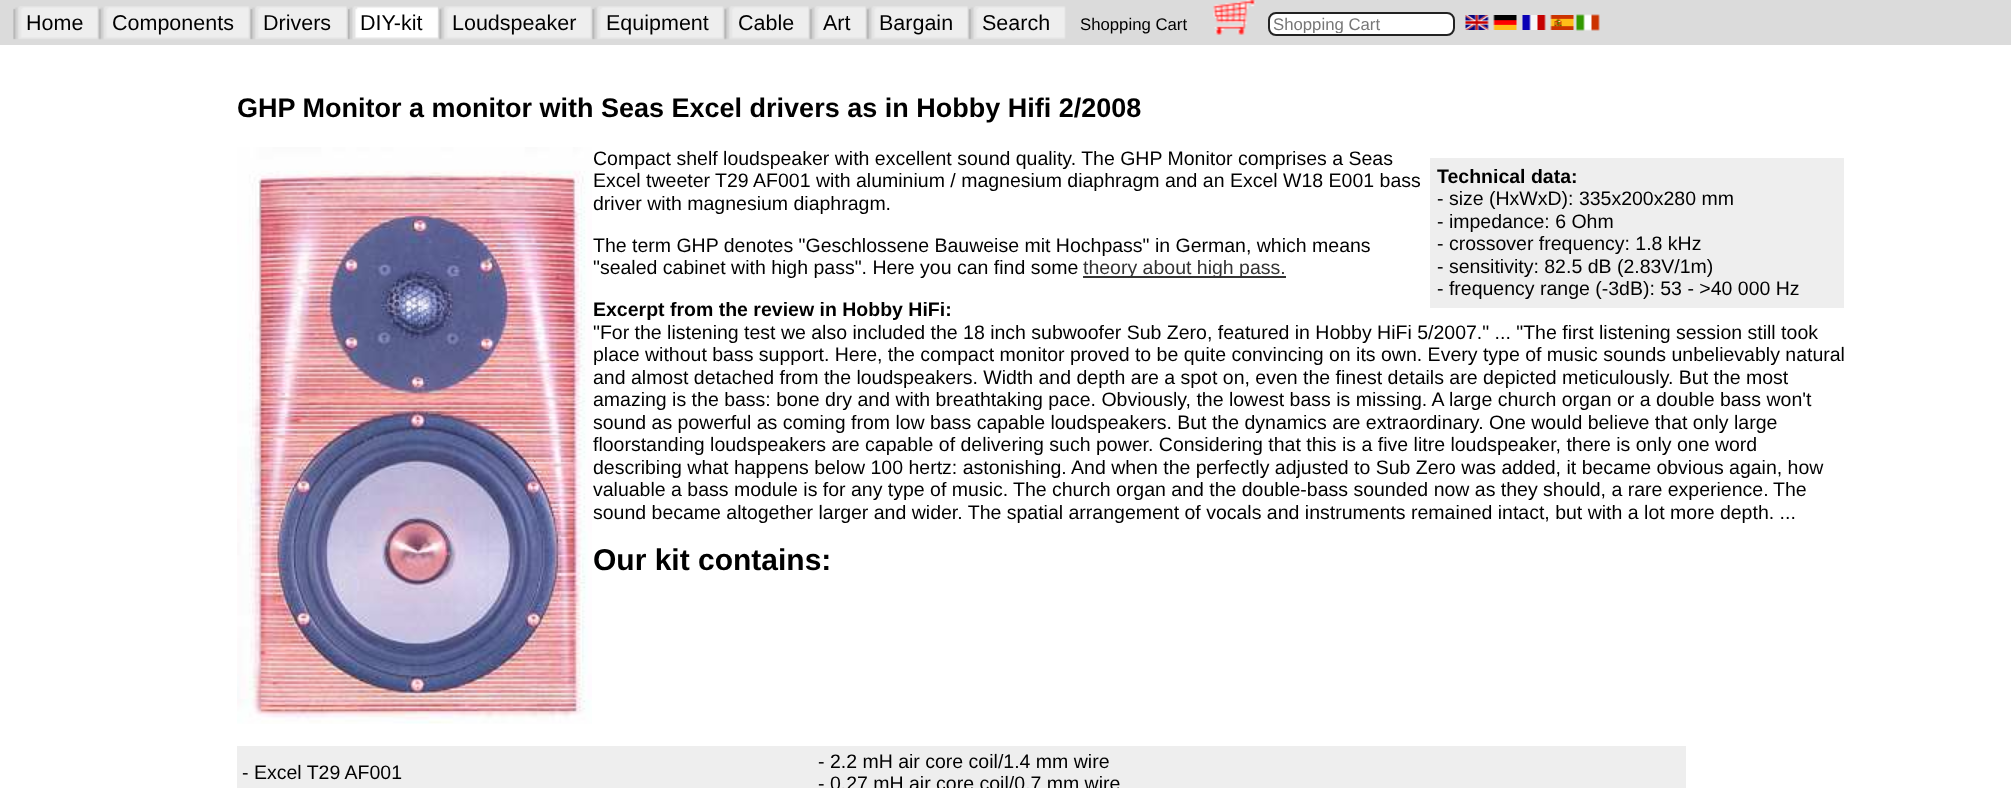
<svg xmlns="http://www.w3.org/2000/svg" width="2011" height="788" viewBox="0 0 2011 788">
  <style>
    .t1 { font: 21.5px Liberation Sans; fill: #000; }
    .t2 { font: 16.75px Liberation Sans; fill: #000; }
    .t3 { font: 16.75px Liberation Sans; fill: #777; }
    .t4 { font: bold 27px Liberation Sans; fill: #000; }
    .t5 { font: 19.5px Liberation Sans; fill: #000; }
    .t6 { font: bold 19.5px Liberation Sans; fill: #000; }
    .t7 { font: 19.5px Liberation Sans; fill: #333; }
    .t8 { font: bold 30px Liberation Sans; fill: #000; }
  </style>
  <defs>
    <clipPath id="clip1"><rect x="1272" y="15" width="179" height="18"/></clipPath>
  </defs>
  <rect width="100%" height="100%" fill="#fff"/>
  <rect x="0" y="0" width="2011" height="45" fill="#dbdbdb"/>
  <image x="13" y="6" width="85" height="34" href="images/1.png"/>
  <image x="98" y="6" width="152" height="34" href="images/2.png"/>
  <image x="250" y="6" width="97" height="34" href="images/3.png"/>
  <image x="347" y="6" width="91" height="34" href="images/4.png"/>
  <image x="439" y="6" width="153" height="34" href="images/5.png"/>
  <image x="592" y="6" width="132" height="34" href="images/6.png"/>
  <image x="724" y="6" width="85" height="34" href="images/7.png"/>
  <image x="809" y="6" width="57" height="34" href="images/8.png"/>
  <image x="866" y="6" width="102" height="34" href="images/9.png"/>
  <image x="968" y="6" width="98" height="34" href="images/10.png"/>
  <text x="26" y="30" class="t1">Home</text>
  <text x="112" y="30" class="t1">Components</text>
  <text x="263" y="30" class="t1">Drivers</text>
  <text x="360" y="30" class="t1">DIY-kit</text>
  <text x="452" y="30" class="t1">Loudspeaker</text>
  <text x="606" y="30" class="t1">Equipment</text>
  <text x="738" y="30" class="t1">Cable</text>
  <text x="823" y="30" class="t1">Art</text>
  <text x="879" y="30" class="t1">Bargain</text>
  <text x="982" y="30" class="t1">Search</text>
  <text x="1080" y="30" class="t2">Shopping Cart</text>
  <image x="1213" y="0" width="43" height="35" href="images/11.png"/>
  <rect x="1269" y="13" width="185" height="22" rx="7" fill="#fff" stroke="#222" stroke-width="2"/>
  <g clip-path="url(#clip1)">
    <text x="1273" y="30" class="t3">Shopping Cart</text>
  </g>
  <image x="1465" y="15" width="24" height="15" href="images/12.png"/>
  <image x="1493" y="15" width="24" height="15" href="images/13.png"/>
  <image x="1522" y="15" width="24" height="15" href="images/14.png"/>
  <image x="1550" y="15" width="24" height="15" href="images/15.png"/>
  <image x="1576" y="14" width="24" height="17" href="images/16.png"/>
  <text x="237" y="117" class="t4">GHP Monitor a monitor with Seas Excel drivers as in Hobby Hifi 2/2008</text>
  <image x="237" y="147" width="355" height="577" href="images/17.png"/>
  <text x="593" y="165" class="t5">Compact shelf loudspeaker with excellent sound quality. The GHP Monitor comprises a Seas</text>
  <text x="593" y="187" class="t5">Excel tweeter T29 AF001 with aluminium / magnesium diaphragm and an Excel W18 E001 bass</text>
  <rect x="1430" y="158" width="414" height="150" fill="#eee"/>
  <text x="1437" y="183" class="t6">Technical data:</text>
  <text x="1437" y="205" class="t5">- size (HxWxD): 335x200x280 mm</text>
  <text x="1437" y="228" class="t5">- impedance: 6 Ohm</text>
  <text x="1437" y="250" class="t5">- crossover frequency: 1.8 kHz</text>
  <text x="1437" y="273" class="t5">- sensitivity: 82.5 dB (2.83V/1m)</text>
  <text x="1437" y="295" class="t5">- frequency range (-3dB): 53 - &gt;40 000 Hz</text>
  <text x="593" y="210" class="t5">driver with magnesium diaphragm.</text>
  <text x="593" y="252" class="t5">The term GHP denotes "Geschlossene Bauweise mit Hochpass" in German, which means</text>
  <text x="593" y="274" class="t5">"sealed cabinet with high pass". Here you can find some</text>
  <rect x="1083" y="276" width="203" height="2" fill="#333"/>
  <text x="1083" y="274" class="t7">theory about high pass.</text>
  <text x="593" y="316" class="t6">Excerpt from the review in Hobby HiFi:</text>
  <text x="593" y="339" class="t5">"For the listening test we also included the 18 inch subwoofer Sub Zero, featured in Hobby HiFi 5/2007." ... "The first listening session still took</text>
  <text x="593" y="361" class="t5">place without bass support. Here, the compact monitor proved to be quite convincing on its own. Every type of music sounds unbelievably natural</text>
  <text x="593" y="384" class="t5">and almost detached from the loudspeakers. Width and depth are a spot on, even the finest details are depicted meticulously. But the most</text>
  <text x="593" y="406" class="t5">amazing is the bass: bone dry and with breathtaking pace. Obviously, the lowest bass is missing. A large church organ or a double bass won't</text>
  <text x="593" y="429" class="t5">sound as powerful as coming from low bass capable loudspeakers. But the dynamics are extraordinary. One would believe that only large</text>
  <text x="593" y="451" class="t5">floorstanding loudspeakers are capable of delivering such power. Considering that this is a five litre loudspeaker, there is only one word</text>
  <text x="593" y="474" class="t5">describing what happens below 100 hertz: astonishing. And when the perfectly adjusted to Sub Zero was added, it became obvious again, how</text>
  <text x="593" y="496" class="t5">valuable a bass module is for any type of music.</text>
  <text x="1013" y="496" class="t5">The church organ and the double-bass sounded now as they should, a rare experience.</text>
  <text x="1773" y="496" class="t5">The</text>
  <text x="593" y="519" class="t5">sound became altogether larger and wider. The spatial arrangement of vocals and instruments remained intact, but with a lot more depth. ...</text>
  <text x="593" y="570" class="t8">Our kit contains:</text>
  <rect x="237" y="746" width="1449" height="42" fill="#eee"/>
  <text x="242" y="779" class="t5">- Excel T29 AF001</text>
  <text x="818" y="768" class="t5">- 2.2 mH air core coil/1.4 mm wire</text>
  <text x="818" y="790" class="t5">- 0.27 mH air core coil/0.7 mm wire</text>
</svg>
